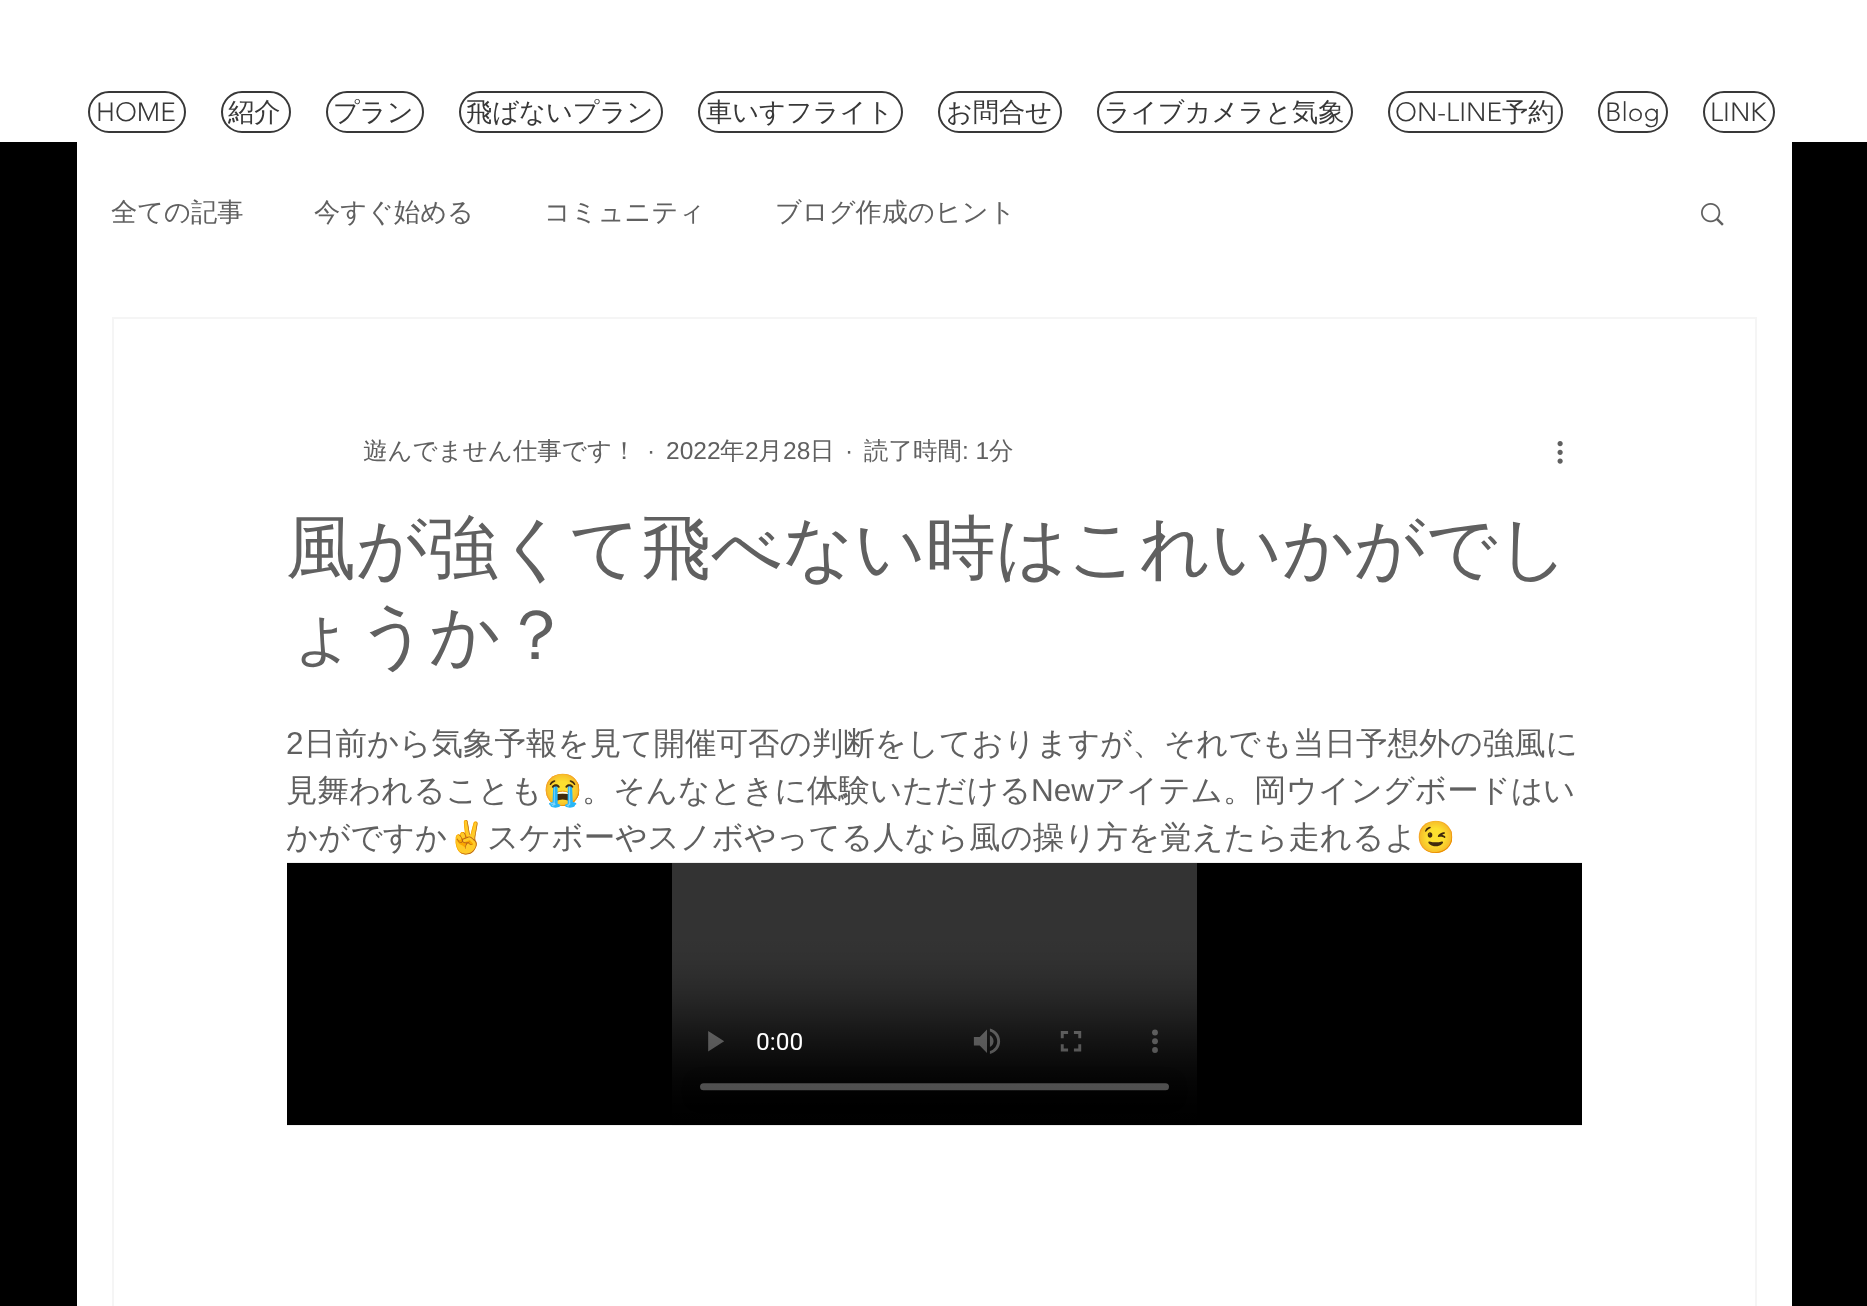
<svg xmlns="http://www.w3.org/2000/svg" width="1867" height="1306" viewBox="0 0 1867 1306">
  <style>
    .t1 { font: 300 26.25px 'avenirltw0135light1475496'; fill: #383838; }
    .t2 { font: 500 26.25px WenQuanYi Zen Hei; fill: #383838; }
    .t3 { font: 500 26.25px WenQuanYi Zen Hei; fill: #606060; }
    .t4 { font: 500 24.5px WenQuanYi Zen Hei; fill: #606060; }
    .t5 { font: 24.5px Liberation Sans; fill: #606060; }
    .t6 { font: 500 70px WenQuanYi Zen Hei; fill: #606060; }
    .t7 { font: 31.5px Liberation Sans; fill: #606060; }
    .t8 { font: 500 31.5px WenQuanYi Zen Hei; fill: #606060; }
    .t9 { font: 31.5px Noto Color Emoji; fill: #606060; }
  </style>
  <rect width="100%" height="100%" fill="#000"/>
  <rect x="0" y="0" width="1867" height="142" fill="#fff"/>
  <rect x="89" y="92" width="96" height="40" rx="20" fill="none" stroke="#383838" stroke-width="2"/>
  <text x="96" y="121" class="t1">HOME</text>
  <rect x="222" y="92" width="68" height="40" rx="20" fill="none" stroke="#383838" stroke-width="2"/>
  <text x="228" y="121" class="t2">紹介</text>
  <rect x="327" y="92" width="96" height="40" rx="20" fill="none" stroke="#383838" stroke-width="2"/>
  <text x="333" y="121" class="t2">プラン</text>
  <rect x="460" y="92" width="202" height="40" rx="20" fill="none" stroke="#383838" stroke-width="2"/>
  <text x="466" y="121" class="t2">飛ばないプラン</text>
  <rect x="699" y="92" width="203" height="40" rx="20" fill="none" stroke="#383838" stroke-width="2"/>
  <text x="706" y="121" class="t2">車いすフライト</text>
  <rect x="939" y="92" width="122" height="40" rx="20" fill="none" stroke="#383838" stroke-width="2"/>
  <text x="946" y="121" class="t2">お問合せ</text>
  <rect x="1098" y="92" width="254" height="40" rx="20" fill="none" stroke="#383838" stroke-width="2"/>
  <text x="1104" y="121" class="t2">ライブカメラと気象</text>
  <rect x="1389" y="92" width="173" height="40" rx="20" fill="none" stroke="#383838" stroke-width="2"/>
  <text x="1395" y="121" class="t1">ON-LINE</text>
  <text x="1502" y="121" class="t2">予約</text>
  <rect x="1599" y="92" width="68" height="40" rx="20" fill="none" stroke="#383838" stroke-width="2"/>
  <text x="1605" y="121" class="t1">Blog</text>
  <rect x="1704" y="92" width="70" height="40" rx="20" fill="none" stroke="#383838" stroke-width="2"/>
  <text x="1710" y="121" class="t1">LINK</text>
  <rect x="77" y="142" width="1715" height="1164" fill="#fff"/>
  <text x="111" y="221" class="t3">全ての記事</text>
  <text x="314" y="221" class="t3">今すぐ始める</text>
  <text x="544" y="221" class="t3">コミュニティ</text>
  <text x="775" y="221" class="t3">ブログ作成のヒント</text>
  <image x="1701" y="203" width="23" height="23" href="images/1.png"/>
  <rect x="113" y="318" width="1643" height="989" fill="none" stroke="#f5f5f5" stroke-width="2"/>
  <text x="363" y="459" class="t4">遊んでません仕事です！</text>
  <text x="647" y="459" class="t5">·</text>
  <text x="666" y="459" class="t5">2022</text>
  <text x="720" y="459" class="t4">年</text>
  <text x="745" y="459" class="t5">2</text>
  <text x="758" y="459" class="t4">月</text>
  <text x="783" y="459" class="t5">28</text>
  <text x="810" y="459" class="t4">日</text>
  <text x="845" y="459" class="t5">·</text>
  <text x="864" y="459" class="t4">読了時間</text>
  <text x="962" y="459" class="t5">: 1</text>
  <text x="989" y="459" class="t4">分</text>
  <image x="1557" y="441" width="6" height="23" href="images/2.png"/>
  <text x="286" y="572" class="t6">風が強くて飛べない時はこれいかがでし</text>
  <text x="286" y="659" class="t6">ょうか？</text>
  <text x="286" y="754" class="t7">2</text>
  <text x="304" y="754" class="t8">日前から気象予報を見て開催可否の判断をしておりますが、それでも当日予想外の強風に</text>
  <text x="286" y="801" class="t8">見舞われることも</text>
  <text x="543" y="801" class="t9">😭</text>
  <text x="582" y="801" class="t8">。そんなときに体験いただける</text>
  <text x="1031" y="801" class="t7">New</text>
  <text x="1094" y="801" class="t8">アイテム。岡ウイングボードはい</text>
  <text x="286" y="848" class="t8">かがですか</text>
  <text x="447" y="848" class="t9">✌️</text>
  <text x="487" y="848" class="t8">スケボーやスノボやってる人なら風の操り方を覚えたら走れるよ</text>
  <text x="1416" y="848" class="t9">😉</text>
  <image x="287" y="862" width="1295" height="264" href="images/3.png"/>
</svg>
